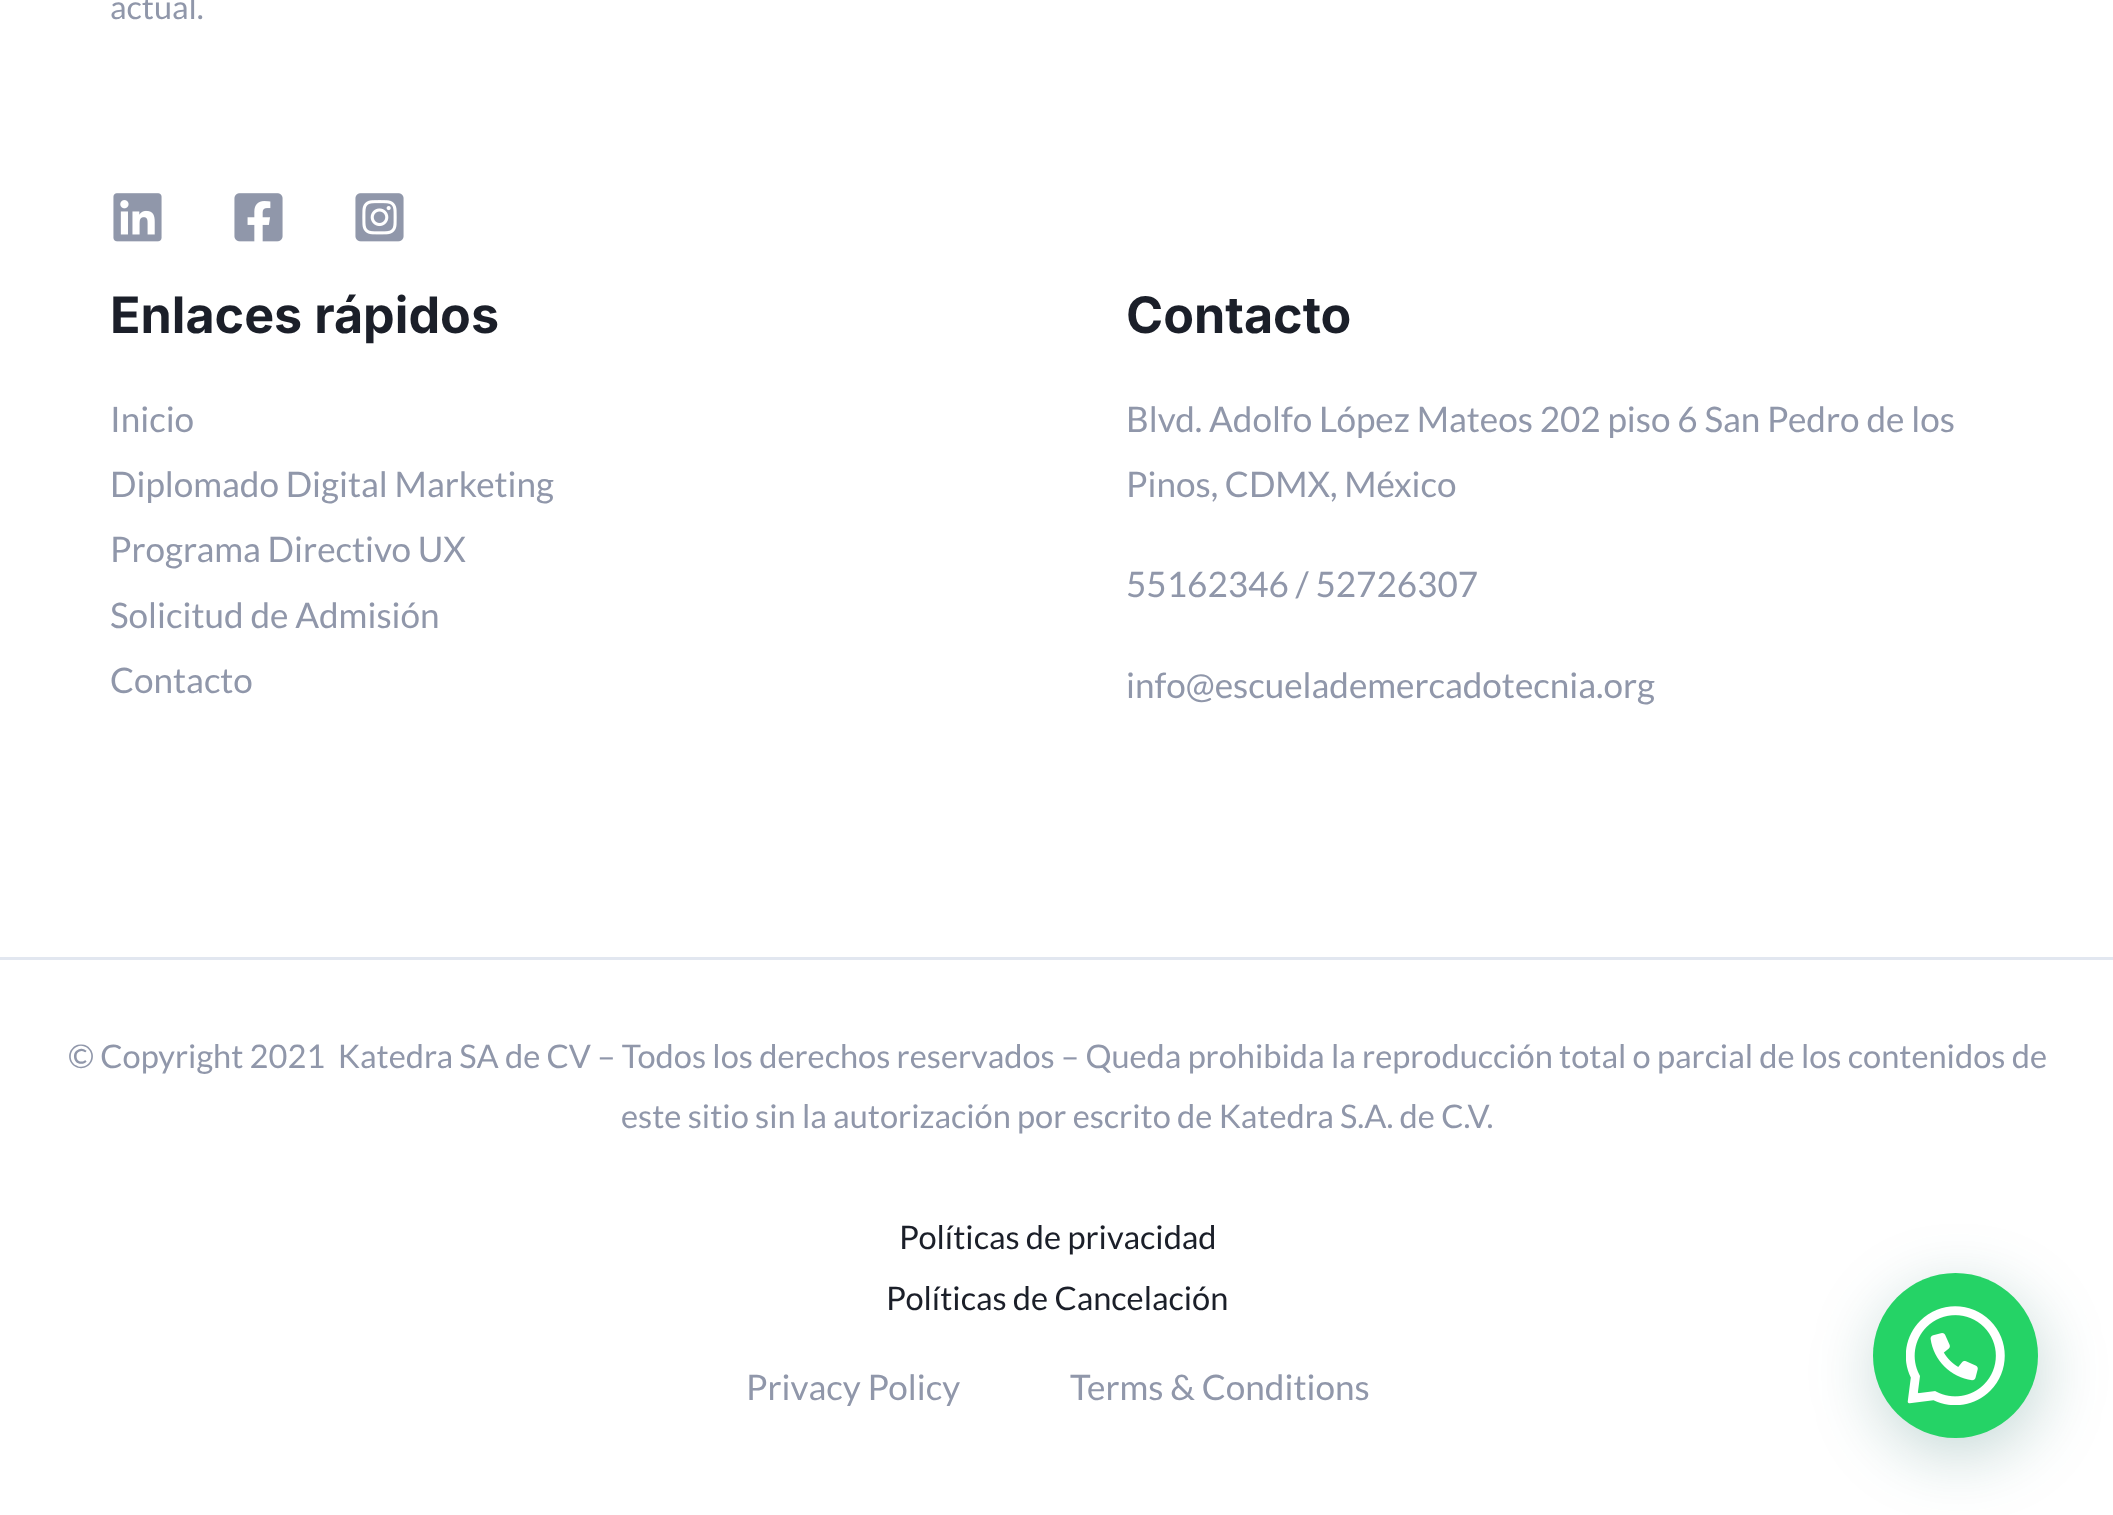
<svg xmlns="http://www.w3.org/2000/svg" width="2113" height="1515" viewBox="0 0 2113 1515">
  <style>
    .t1 { font: 32.6px Lato; fill: #9097aa; }
    .t2 { font: bold 50.25px Inter; fill: #1b1f29; }
    .t3 { font: 35.1px Lato; fill: #9097aa; }
    .t4 { font: 32.6px Lato; fill: #1b1f29; }
  </style>
  <rect width="100%" height="100%" fill="#fff"/>
  <text x="110" y="19" class="t1">actual.</text>
  <image x="113" y="193" width="49" height="49" href="images/1.png"/>
  <image x="234" y="193" width="49" height="49" href="images/2.png"/>
  <image x="355" y="193" width="49" height="49" href="images/3.png"/>
  <text x="110" y="333" class="t2">Enlaces rápidos</text>
  <text x="110" y="432" class="t3">Inicio</text>
  <text x="110" y="497" class="t3">Diplomado Digital Marketing</text>
  <text x="110" y="562" class="t3">Programa Directivo UX</text>
  <text x="110" y="628" class="t3">Solicitud de Admisión</text>
  <text x="110" y="693" class="t3">Contacto</text>
  <text x="1126" y="333" class="t2">Contacto</text>
  <text x="1126" y="432" class="t3">Blvd. Adolfo López Mateos 202 piso 6 San Pedro de los</text>
  <text x="1126" y="497" class="t3">Pinos, CDMX, México</text>
  <text x="1126" y="597" class="t3">55162346 / 52726307</text>
  <text x="1126" y="698" class="t3">info@escuelademercadotecnia.org</text>
  <rect x="0" y="957" width="2113" height="3" fill="#e2e7f0"/>
  <text x="68" y="1068" class="t1" xml:space="preserve">© Copyright 2021  Katedra SA de CV – Todos los derechos reservados – Queda prohibida la reproducción total o parcial de los contenidos de</text>
  <text x="621" y="1128" class="t1">este sitio sin la autorización por escrito de Katedra S.A. de C.V.</text>
  <text x="899" y="1249" class="t4">Políticas de privacidad</text>
  <text x="886" y="1310" class="t4">Políticas de Cancelación</text>
  <text x="746" y="1400" class="t3">Privacy Policy</text>
  <text x="1070" y="1400" class="t3">Terms &amp; Conditions</text>
  <rect x="1876" y="1290" width="165" height="165" rx="82.5" fill="#075e543d" filter="blur(33px)"/>
  <circle cx="1955.5" cy="1355.5" r="82.5" fill="#25d366"/>
  <image x="1906" y="1306" width="99" height="99" href="images/4.png"/>
</svg>
